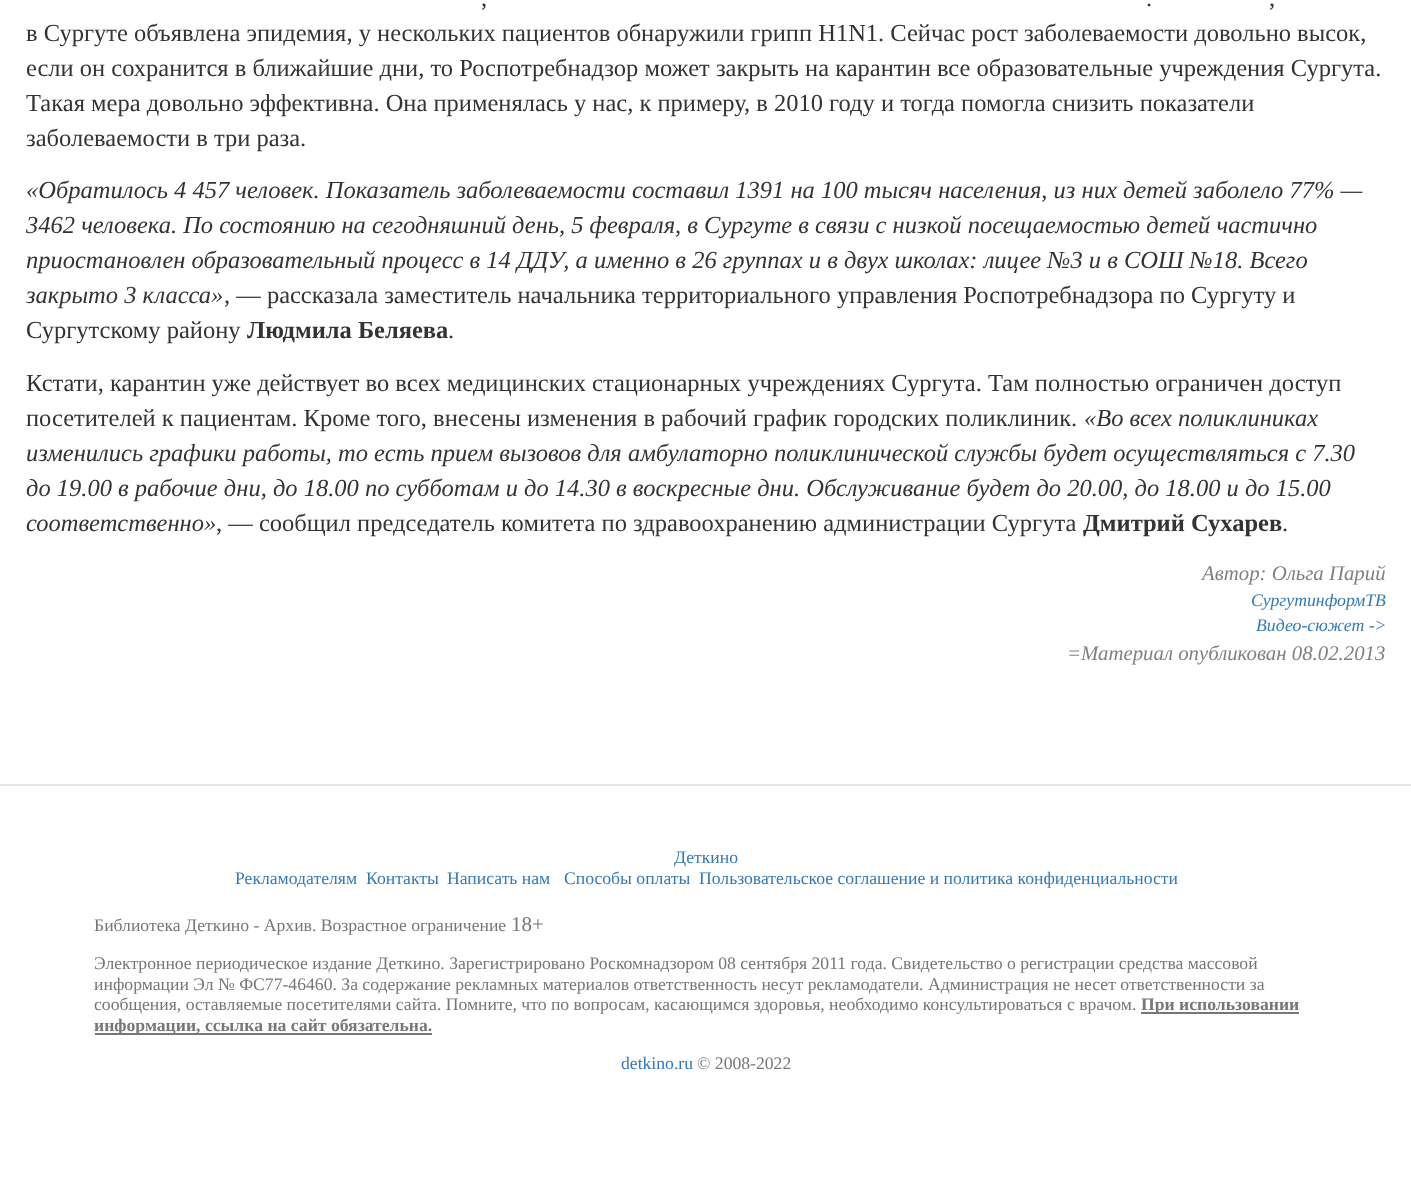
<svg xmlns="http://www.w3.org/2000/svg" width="1411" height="1189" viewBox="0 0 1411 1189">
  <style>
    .t1 { font: 24.5px Liberation Serif; fill: #333; }
    .t2 { font: italic 24.5px Liberation Serif; fill: #333; }
    .t3 { font: bold 24.5px Liberation Serif; fill: #333; }
    .t4 { font: italic 20.8px Liberation Serif; fill: #808080; }
    .t5 { font: italic 17.75px Liberation Serif; fill: #337ab7; }
    .t6 { font: 17.65px Liberation Serif; fill: #337ab7; }
    .t7 { font: 17.65px Liberation Serif; fill: #777; }
    .t8 { font: 21px Liberation Serif; fill: #777; }
    .t9 { font: bold 17.65px Liberation Serif; fill: #777; }
  </style>
  <rect width="100%" height="100%" fill="#fff"/>
  <text x="481" y="6" class="t1">,</text>
  <text x="1146" y="6" class="t1">.</text>
  <text x="1269" y="6" class="t1">,</text>
  <text x="26" y="41" class="t1">в Сургуте объявлена эпидемия, у нескольких пациентов обнаружили грипп H1N1. Сейчас рост заболеваемости довольно высок,</text>
  <text x="26" y="76" class="t1">если он сохранится в ближайшие дни, то Роспотребнадзор может закрыть на карантин все образовательные учреждения Сургута.</text>
  <text x="26" y="111" class="t1">Такая мера довольно эффективна. Она применялась у нас, к примеру, в 2010 году и тогда помогла снизить показатели</text>
  <text x="26" y="146" class="t1">заболеваемости в три раза.</text>
  <text x="26" y="198" class="t2">«Обратилось 4 457 человек. Показатель заболеваемости составил 1391 на 100 тысяч населения, из них детей заболело 77% —</text>
  <text x="26" y="233" class="t2">3462 человека. По состоянию на сегодняшний день, 5 февраля, в Сургуте в связи с низкой посещаемостью детей частично</text>
  <text x="26" y="268" class="t2">приостановлен образовательный процесс в 14 ДДУ, а именно в 26 группах и в двух школах: лицее №3 и в СОШ №18. Всего</text>
  <text x="26" y="303" class="t2">закрыто 3 класса»</text>
  <text x="224" y="303" class="t1">, — рассказала заместитель начальника территориального управления Роспотребнадзора по Сургуту и</text>
  <text x="26" y="338" class="t1">Сургутскому району</text>
  <text x="247" y="338" class="t3">Людмила Беляева</text>
  <text x="448" y="338" class="t1">.</text>
  <text x="26" y="391" class="t1">Кстати, карантин уже действует во всех медицинских стационарных учреждениях Сургута. Там полностью ограничен доступ</text>
  <text x="26" y="426" class="t1">посетителей к пациентам. Кроме того, внесены изменения в рабочий график городских поликлиник.</text>
  <text x="1084" y="426" class="t2">«Во всех поликлиниках</text>
  <text x="26" y="461" class="t2">изменились графики работы, то есть прием вызовов для амбулаторно поликлинической службы будет осуществляться с 7.30</text>
  <text x="26" y="496" class="t2">до 19.00 в рабочие дни, до 18.00 по субботам и до 14.30 в воскресные дни. Обслуживание будет до 20.00, до 18.00 и до 15.00</text>
  <text x="26" y="531" class="t2">соответственно»</text>
  <text x="216" y="531" class="t1">, — сообщил председатель комитета по здравоохранению администрации Сургута</text>
  <text x="1083" y="531" class="t3">Дмитрий Сухарев</text>
  <text x="1282" y="531" class="t1">.</text>
  <text x="1202" y="580" class="t4">Автор: Ольга Парий</text>
  <text x="1251" y="606" class="t5">СургутинформТВ</text>
  <text x="1256" y="631" class="t5">Видео-сюжет -&gt;</text>
  <text x="1067" y="660" class="t4">=Материал опубликован 08.02.2013</text>
  <rect x="0" y="784" width="1411" height="2" fill="#e5e5e5"/>
  <text x="674" y="863" class="t6">Деткино</text>
  <text x="235" y="884" class="t6">Рекламодателям</text>
  <text x="366" y="884" class="t6">Контакты</text>
  <text x="447" y="884" class="t6">Написать нам</text>
  <text x="564" y="884" class="t6">Способы оплаты</text>
  <text x="699" y="884" class="t6">Пользовательское соглашение и политика конфиденциальности</text>
  <text x="94" y="931" class="t7">Библиотека Деткино - Архив. Возрастное ограничение</text>
  <text x="511" y="931" class="t8">18+</text>
  <text x="94" y="969" class="t7">Электронное периодическое издание Деткино. Зарегистрировано Роскомнадзором 08 сентября 2011 года. Свидетельство о регистрации средства массовой</text>
  <text x="94" y="990" class="t7">информации Эл № ФС77-46460. За содержание рекламных материалов ответственность несут рекламодатели. Администрация не несет ответственности за</text>
  <text x="94" y="1010" class="t7">сообщения, оставляемые посетителями сайта. Помните, что по вопросам, касающимся здоровья, необходимо консультироваться с врачом.</text>
  <rect x="1141" y="1012" width="158" height="2" fill="#777"/>
  <text x="1141" y="1010" class="t9">При использовании</text>
  <rect x="95" y="1033" width="337" height="2" fill="#777"/>
  <text x="94" y="1031" class="t9">информации, ссылка на сайт обязательна.</text>
  <text x="621" y="1069" class="t6">detkino.ru</text>
  <text x="697" y="1069" class="t7">© 2008-2022</text>
</svg>
